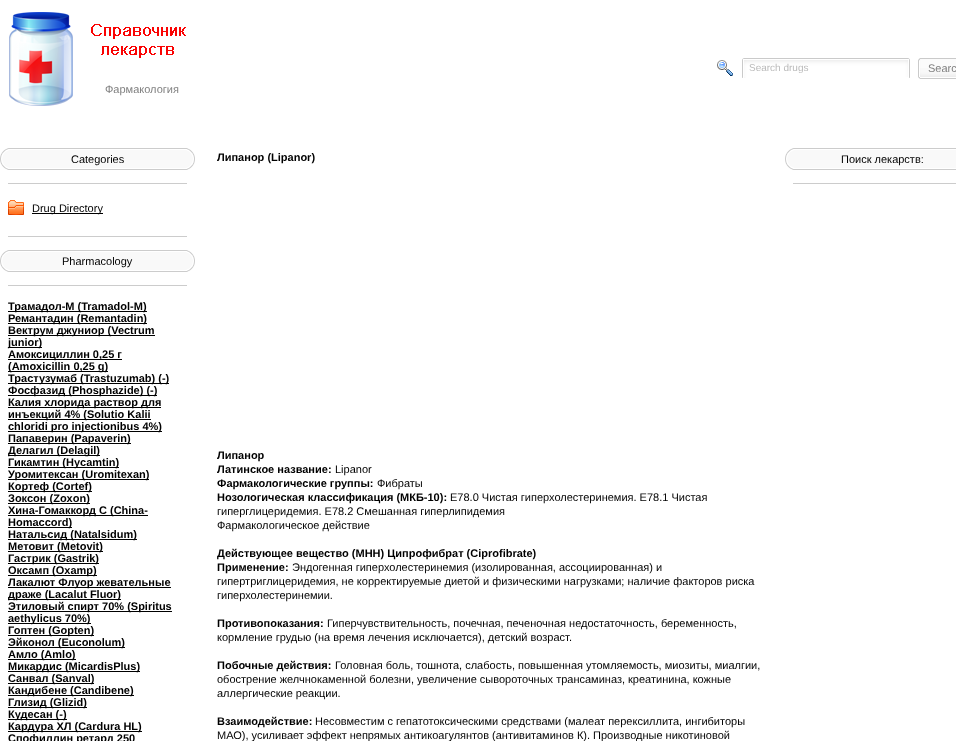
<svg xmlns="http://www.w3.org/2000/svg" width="956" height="741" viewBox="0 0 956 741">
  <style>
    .t1 { font: 10px Liberation Sans; fill: #bababa; }
    .t2 { font: 11px Liberation Sans; fill: #808080; }
    .t3 { font: 11px Liberation Sans; fill: #000; }
    .t4 { font: bold 11px Liberation Sans; fill: #000; }
  </style>
  <rect width="100%" height="100%" fill="#fff"/>
  <image x="717" y="60" width="16" height="16" href="images/1.png"/>
  <image x="742" y="58" width="168" height="20" href="images/2.png"/>
  <text x="749" y="71" class="t1">Search drugs</text>
  <image x="918" y="58" width="38" height="21" href="images/3.png"/>
  <text x="928" y="72" class="t2">Searc</text>
  <image x="9" y="12" width="177" height="94" href="images/4.png"/>
  <text x="105" y="93" class="t2">Фармакология</text>
  <image x="0" y="148" width="195" height="22" href="images/5.png"/>
  <text x="71" y="163" class="t3">Categories</text>
  <rect x="8" y="183" width="179" height="1" fill="#ccc"/>
  <rect x="8" y="236" width="179" height="1" fill="#ccc"/>
  <image x="8" y="200" width="16" height="15" href="images/6.png"/>
  <rect x="32" y="213" width="71" height="1" fill="#000"/>
  <text x="32" y="212" class="t3">Drug Directory</text>
  <image x="0" y="250" width="195" height="22" href="images/5.png"/>
  <text x="62" y="265" class="t3">Pharmacology</text>
  <rect x="8" y="285" width="179" height="1" fill="#ccc"/>
  <rect x="8" y="311" width="139" height="1" fill="#000"/>
  <text x="8" y="310" class="t4">Трамадол-М (Tramadol-M)</text>
  <rect x="8" y="323" width="139" height="1" fill="#000"/>
  <text x="8" y="322" class="t4">Ремантадин (Remantadin)</text>
  <rect x="8" y="335" width="147" height="1" fill="#000"/>
  <text x="8" y="334" class="t4">Вектрум джуниор (Vectrum</text>
  <rect x="8" y="347" width="34" height="1" fill="#000"/>
  <text x="8" y="346" class="t4">junior)</text>
  <rect x="8" y="359" width="114" height="1" fill="#000"/>
  <text x="8" y="358" class="t4">Амоксициллин 0,25 г</text>
  <rect x="8" y="371" width="100" height="1" fill="#000"/>
  <text x="8" y="370" class="t4">(Amoxicillin 0,25 g)</text>
  <rect x="8" y="383" width="161" height="1" fill="#000"/>
  <text x="8" y="382" class="t4">Трастузумаб (Trastuzumab) (-)</text>
  <rect x="8" y="395" width="149" height="1" fill="#000"/>
  <text x="8" y="394" class="t4">Фосфазид (Phosphazide) (-)</text>
  <rect x="8" y="407" width="153" height="1" fill="#000"/>
  <text x="8" y="406" class="t4">Калия хлорида раствор для</text>
  <rect x="8" y="419" width="143" height="1" fill="#000"/>
  <text x="8" y="418" class="t4">инъекций 4% (Solutio Kalii</text>
  <rect x="8" y="431" width="154" height="1" fill="#000"/>
  <text x="8" y="430" class="t4">chloridi pro injectionibus 4%)</text>
  <rect x="8" y="443" width="123" height="1" fill="#000"/>
  <text x="8" y="442" class="t4">Папаверин (Papaverin)</text>
  <rect x="8" y="455" width="92" height="1" fill="#000"/>
  <text x="8" y="454" class="t4">Делагил (Delagil)</text>
  <rect x="8" y="467" width="111" height="1" fill="#000"/>
  <text x="8" y="466" class="t4">Гикамтин (Hycamtin)</text>
  <rect x="8" y="479" width="141" height="1" fill="#000"/>
  <text x="8" y="478" class="t4">Уромитексан (Uromitexan)</text>
  <rect x="8" y="491" width="84" height="1" fill="#000"/>
  <text x="8" y="490" class="t4">Кортеф (Cortef)</text>
  <rect x="8" y="503" width="82" height="1" fill="#000"/>
  <text x="8" y="502" class="t4">Зоксон (Zoxon)</text>
  <rect x="8" y="515" width="140" height="1" fill="#000"/>
  <text x="8" y="514" class="t4">Хина-Гомаккорд С (China-</text>
  <rect x="8" y="527" width="64" height="1" fill="#000"/>
  <text x="8" y="526" class="t4">Homaccord)</text>
  <rect x="8" y="539" width="129" height="1" fill="#000"/>
  <text x="8" y="538" class="t4">Натальсид (Natalsidum)</text>
  <rect x="8" y="551" width="95" height="1" fill="#000"/>
  <text x="8" y="550" class="t4">Метовит (Metovit)</text>
  <rect x="8" y="563" width="91" height="1" fill="#000"/>
  <text x="8" y="562" class="t4">Гастрик (Gastrik)</text>
  <rect x="8" y="575" width="89" height="1" fill="#000"/>
  <text x="8" y="574" class="t4">Оксамп (Oxamp)</text>
  <rect x="8" y="587" width="163" height="1" fill="#000"/>
  <text x="8" y="586" class="t4">Лакалют Флуор жевательные</text>
  <rect x="8" y="599" width="113" height="1" fill="#000"/>
  <text x="8" y="598" class="t4">драже (Lacalut Fluor)</text>
  <rect x="8" y="611" width="164" height="1" fill="#000"/>
  <text x="8" y="610" class="t4">Этиловый спирт 70% (Spiritus</text>
  <rect x="8" y="623" width="83" height="1" fill="#000"/>
  <text x="8" y="622" class="t4">aethylicus 70%)</text>
  <rect x="8" y="635" width="86" height="1" fill="#000"/>
  <text x="8" y="634" class="t4">Гоптен (Gopten)</text>
  <rect x="8" y="647" width="117" height="1" fill="#000"/>
  <text x="8" y="646" class="t4">Эйконол (Euconolum)</text>
  <rect x="8" y="659" width="68" height="1" fill="#000"/>
  <text x="8" y="658" class="t4">Амло (Amlo)</text>
  <rect x="8" y="671" width="132" height="1" fill="#000"/>
  <text x="8" y="670" class="t4">Микардис (MicardisPlus)</text>
  <rect x="8" y="683" width="86" height="1" fill="#000"/>
  <text x="8" y="682" class="t4">Санвал (Sanval)</text>
  <rect x="8" y="695" width="126" height="1" fill="#000"/>
  <text x="8" y="694" class="t4">Кандибене (Candibene)</text>
  <rect x="8" y="707" width="79" height="1" fill="#000"/>
  <text x="8" y="706" class="t4">Глизид (Glizid)</text>
  <rect x="8" y="719" width="59" height="1" fill="#000"/>
  <text x="8" y="718" class="t4">Кудесан (-)</text>
  <rect x="8" y="731" width="134" height="1" fill="#000"/>
  <text x="8" y="730" class="t4">Кардура ХЛ (Cardura HL)</text>
  <text x="8" y="742" class="t4">Спофиллин ретард 250</text>
  <text x="217" y="161" class="t4">Липанор (Lipanor)</text>
  <text x="217" y="459" class="t4">Липанор</text>
  <text x="217" y="473" class="t4">Латинское название:</text>
  <text x="335" y="473" class="t3">Lipanor</text>
  <text x="217" y="487" class="t4">Фармакологические группы:</text>
  <text x="377" y="487" class="t3">Фибраты</text>
  <text x="217" y="501" class="t4">Нозологическая классификация (МКБ-10):</text>
  <text x="450" y="501" class="t3">E78.0 Чистая гиперхолестеринемия. E78.1 Чистая</text>
  <text x="217" y="515" class="t3">гиперглицеридемия. E78.2 Смешанная гиперлипидемия</text>
  <text x="217" y="529" class="t3">Фармакологическое действие</text>
  <text x="217" y="557" class="t4">Действующее вещество (МНН) Ципрофибрат (Ciprofibrate)</text>
  <text x="217" y="571" class="t4">Применение:</text>
  <text x="292" y="571" class="t3">Эндогенная гиперхолестеринемия (изолированная, ассоциированная) и</text>
  <text x="217" y="585" class="t3">гипертриглицеридемия, не корректируемые диетой и физическими нагрузками; наличие факторов риска</text>
  <text x="217" y="599" class="t3">гиперхолестеринемии.</text>
  <text x="217" y="627" class="t4">Противопоказания:</text>
  <text x="327" y="627" class="t3">Гиперчувствительность, почечная, печеночная недостаточность, беременность,</text>
  <text x="217" y="641" class="t3">кормление грудью (на время лечения исключается), детский возраст.</text>
  <text x="217" y="669" class="t4">Побочные действия:</text>
  <text x="335" y="669" class="t3">Головная боль, тошнота, слабость, повышенная утомляемость, миозиты, миалгии,</text>
  <text x="217" y="683" class="t3">обострение желчнокаменной болезни, увеличение сывороточных трансаминаз, креатинина, кожные</text>
  <text x="217" y="697" class="t3">аллергические реакции.</text>
  <text x="217" y="725" class="t4">Взаимодействие:</text>
  <text x="315" y="725" class="t3">Несовместим с гепатотоксическими средствами (малеат перексиллита, ингибиторы</text>
  <text x="217" y="739" class="t3">МАО), усиливает эффект непрямых антикоагулянтов (антивитаминов К). Производные никотиновой</text>
  <image x="785" y="148" width="171" height="22" href="images/7.png"/>
  <text x="841" y="163" class="t3">Поиск лекарств:</text>
  <rect x="793" y="183" width="163" height="1" fill="#ccc"/>
</svg>
